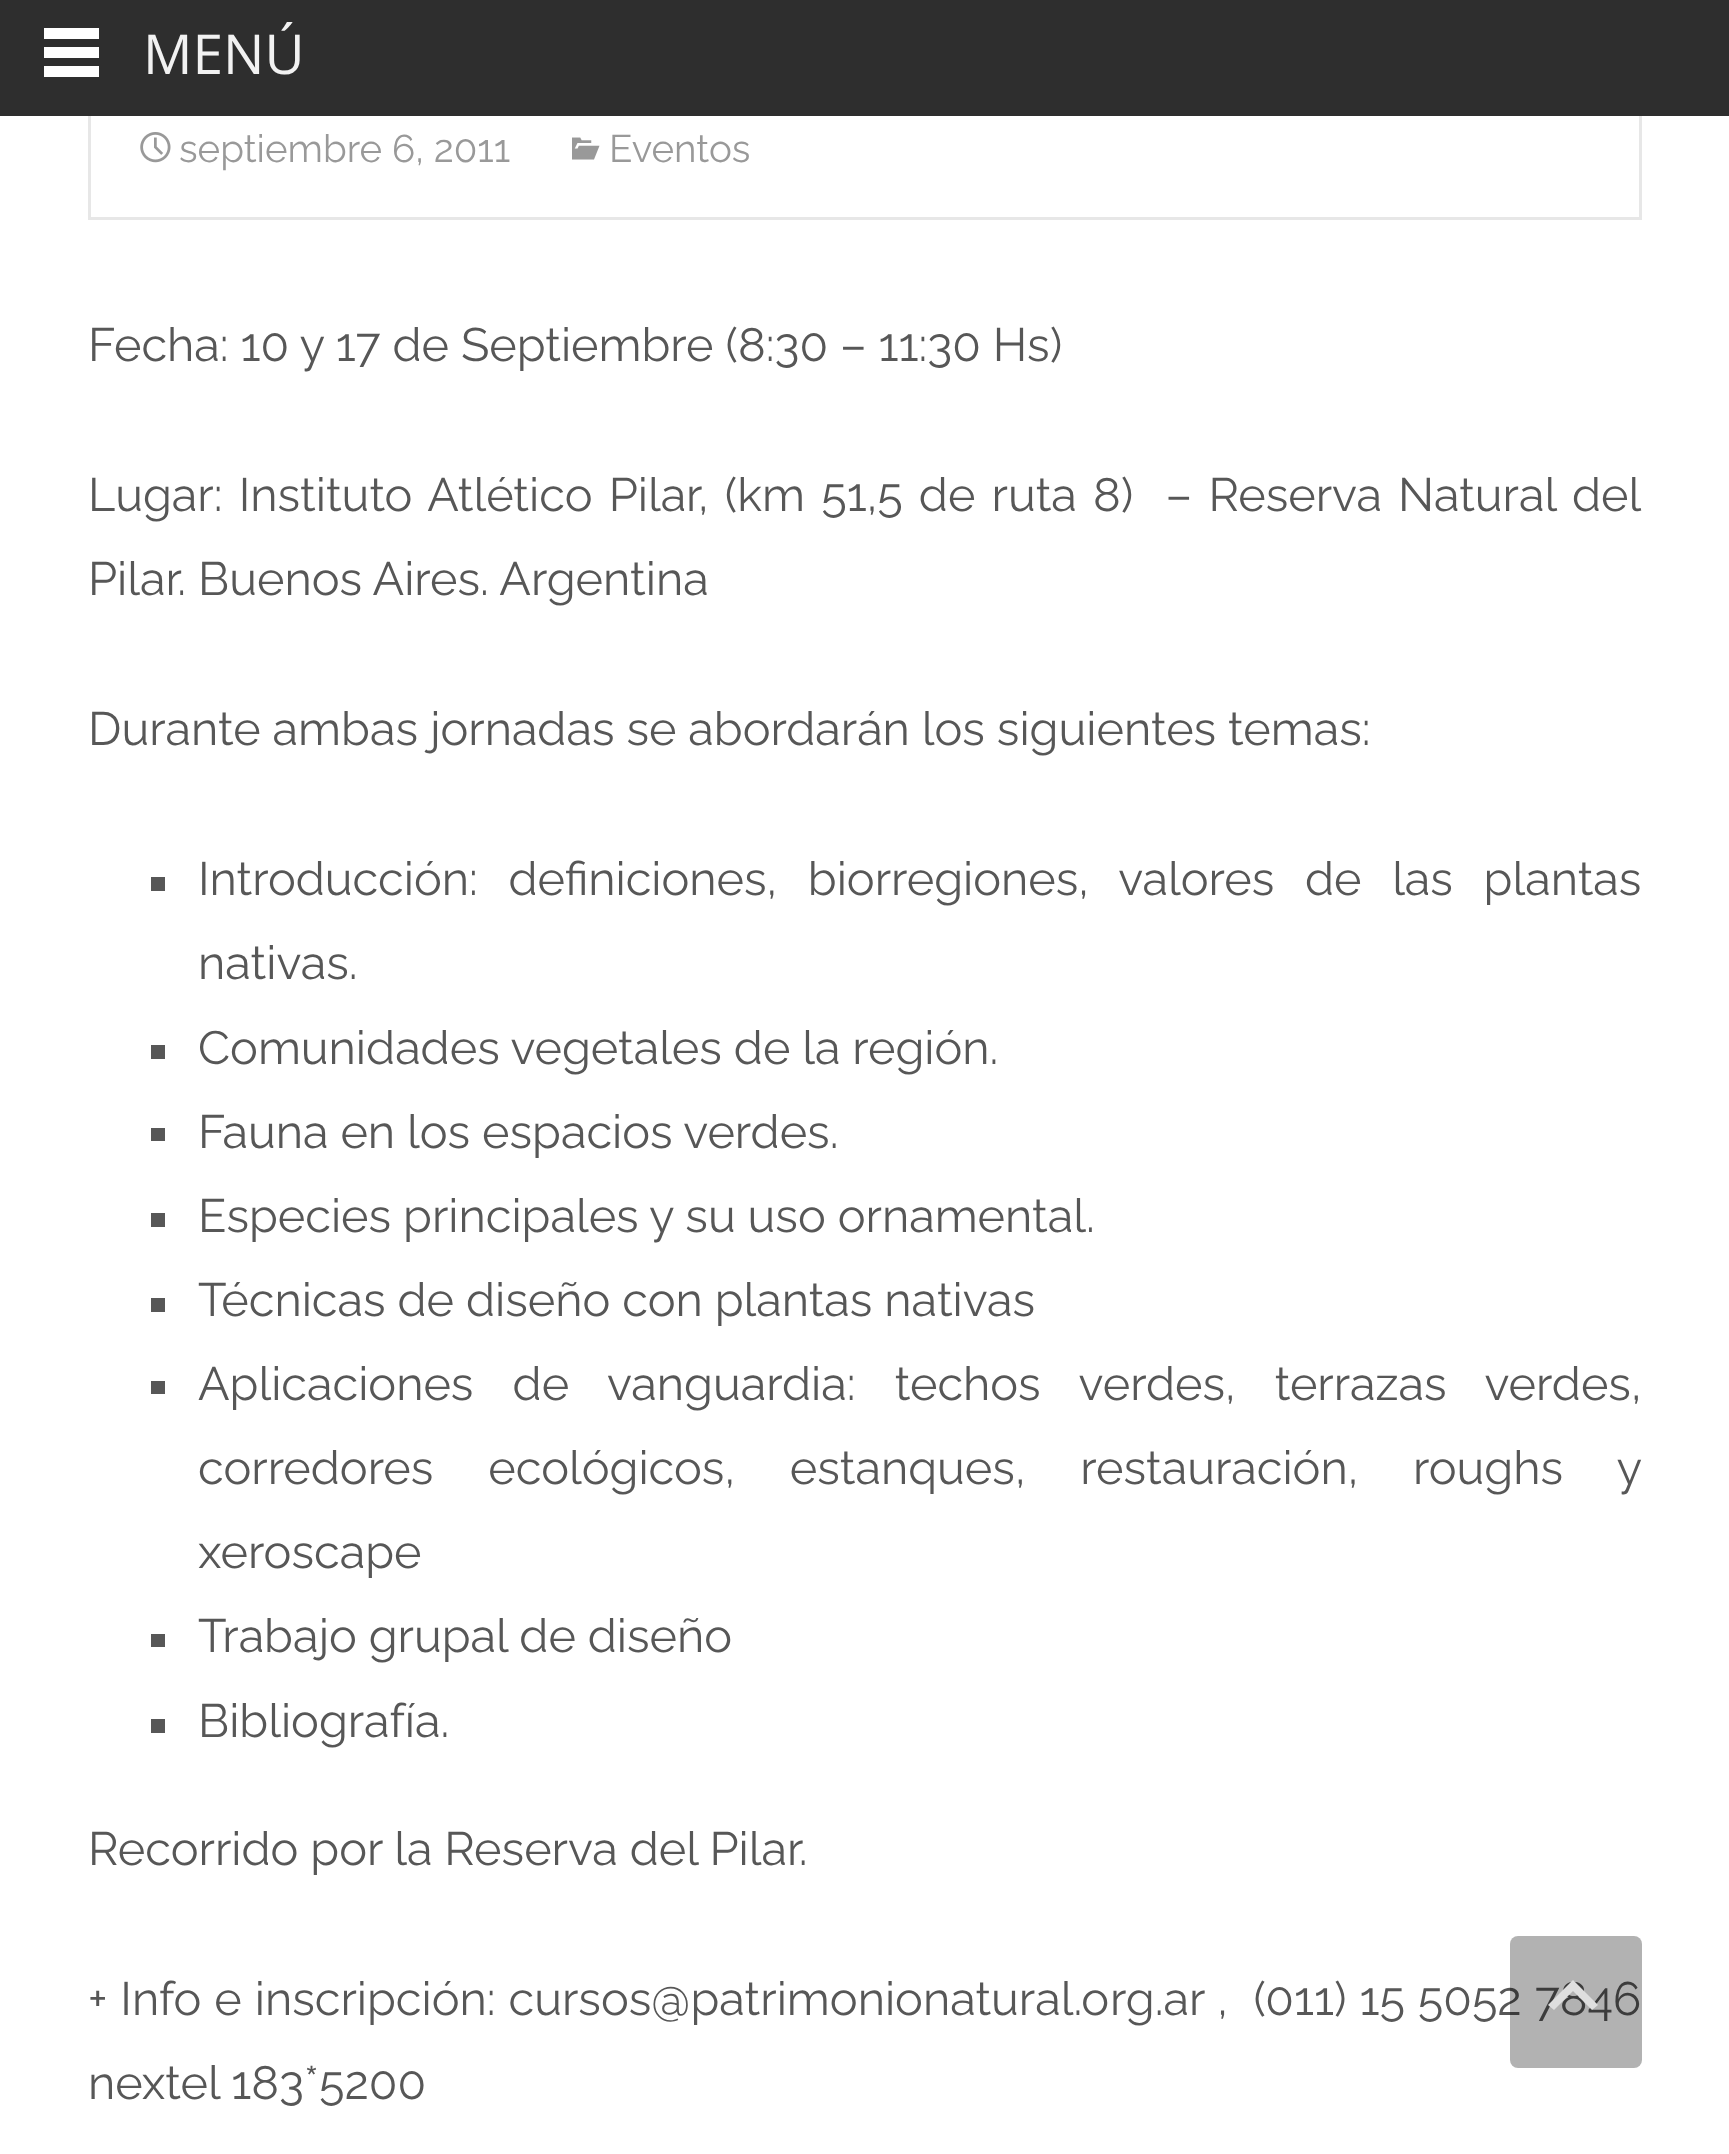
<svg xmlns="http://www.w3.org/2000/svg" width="1729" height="2154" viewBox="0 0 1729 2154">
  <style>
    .t1 { font: 55px Open Sans; fill: #f2f2f2; }
    .t2 { font: 38.5px Raleway; fill: #999; }
    .t3 { font: 46.75px Raleway; fill: #575757; }
  </style>
  <rect width="100%" height="100%" fill="#fff"/>
  <rect x="89.5" y="81.5" width="1551" height="137" fill="none" stroke="#e7e7e7" stroke-width="3"/>
  <rect x="0" y="0" width="1729" height="116" fill="#2e2e2e"/>
  <rect x="44" y="28" width="55" height="11" fill="#fff"/>
  <rect x="44" y="47" width="55" height="11" fill="#fff"/>
  <rect x="44" y="66" width="55" height="11" fill="#fff"/>
  <text x="143" y="74" class="t1">MENÚ</text>
  <image x="140" y="132" width="31" height="31" href="images/1.png"/>
  <text x="179" y="162" class="t2">septiembre 6, 2011</text>
  <image x="572" y="137" width="28" height="23" href="images/2.png"/>
  <text x="609" y="162" class="t2">Eventos</text>
  <text x="88" y="361" class="t3">Fecha: 10 y 17 de Septiembre (8:30 – 11:30 Hs)</text>
  <text x="88" y="511" word-spacing="4.25" class="t3" xml:space="preserve">Lugar: Instituto Atlético Pilar, (km 51,5 de ruta 8)  – Reserva Natural del</text>
  <text x="88" y="595" class="t3">Pilar. Buenos Aires. Argentina</text>
  <text x="88" y="745" class="t3">Durante ambas jornadas se abordarán los siguientes temas:</text>
  <rect x="151" y="877" width="14" height="14" fill="#575757"/>
  <text x="198" y="895" word-spacing="18.75" class="t3">Introducción: definiciones, biorregiones, valores de las plantas</text>
  <text x="198" y="979" class="t3">nativas.</text>
  <rect x="151" y="1045" width="14" height="14" fill="#575757"/>
  <text x="198" y="1064" class="t3">Comunidades vegetales de la región.</text>
  <rect x="151" y="1128" width="14" height="13" fill="#575757"/>
  <text x="198" y="1148" class="t3">Fauna en los espacios verdes.</text>
  <rect x="151" y="1213" width="14" height="14" fill="#575757"/>
  <text x="198" y="1232" class="t3">Especies principales y su uso ornamental.</text>
  <rect x="151" y="1298" width="14" height="14" fill="#575757"/>
  <text x="198" y="1316" class="t3">Técnicas de diseño con plantas nativas</text>
  <rect x="151" y="1381" width="14" height="13" fill="#575757"/>
  <text x="198" y="1400" word-spacing="27.25" class="t3">Aplicaciones de vanguardia: techos verdes, terrazas verdes,</text>
  <text x="198" y="1484" word-spacing="43" class="t3">corredores ecológicos, estanques, restauración, roughs y</text>
  <text x="198" y="1568" class="t3">xeroscape</text>
  <rect x="151" y="1634" width="14" height="13" fill="#575757"/>
  <text x="198" y="1652" class="t3">Trabajo grupal de diseño</text>
  <rect x="151" y="1719" width="14" height="14" fill="#575757"/>
  <text x="198" y="1737" class="t3">Bibliografía.</text>
  <text x="88" y="1865" class="t3">Recorrido por la Reserva del Pilar.</text>
  <text x="88" y="2015" word-spacing="1" class="t3">+ Info e inscripción: cursos@patrimonionatural.o</text>
  <text x="1110" y="2015" word-spacing="1" class="t3" xml:space="preserve">rg.ar ,  (011) 15 5052 7846</text>
  <text x="88" y="2099" class="t3">nextel 183*5200</text>
  <rect x="1510" y="1936" width="132" height="132" rx="8" fill="#0000004d"/>
  <path d="M1548 2005L1573 1980L1598 2005L1592 2010L1573 1991L1554 2010Z" fill="#dfdfdf"/>
</svg>
